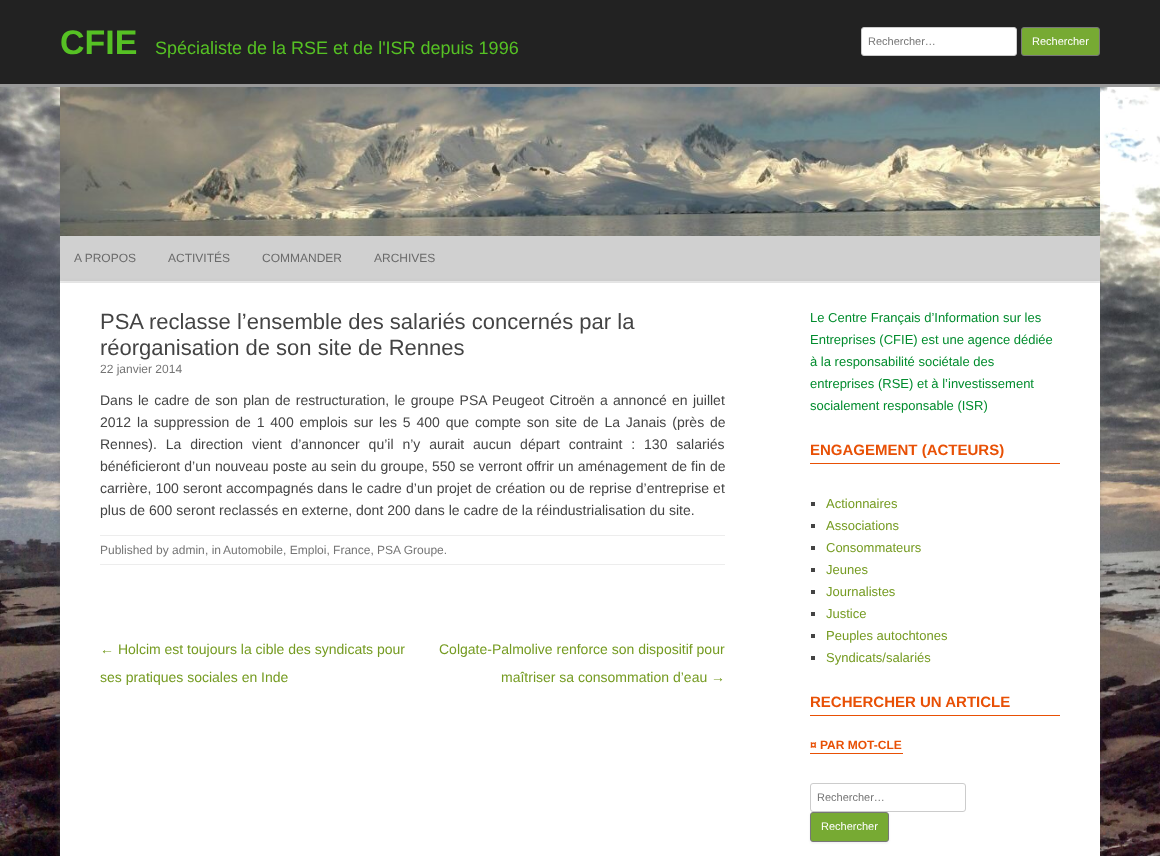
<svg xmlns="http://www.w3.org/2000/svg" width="1160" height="856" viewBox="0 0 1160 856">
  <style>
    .t1 { font: bold 34px Liberation Sans; fill: #56c124; }
    .t2 { font: 18px Liberation Sans; fill: #56c124; }
    .t3 { font: 11px Liberation Sans; fill: #757575; }
    .t4 { font: 11px Liberation Sans; fill: #fff; }
    .t5 { font: 12px Liberation Sans; fill: #6a6a6a; }
    .t6 { font: 22px Liberation Sans; fill: #444; }
    .t7 { font: 12px Liberation Sans; fill: #757575; }
    .t8 { font: 14px Liberation Sans; fill: #444; }
    .t9 { font: 14px Liberation Sans; fill: #759b21; }
    .t10 { font: 13px Liberation Sans; fill: #018c2d; }
    .t11 { font: bold 15px Liberation Sans; fill: #e85005; }
    .t12 { font: 13px Liberation Sans; fill: #759b21; }
    .t13 { font: bold 12px Liberation Sans; fill: #e85005; }
  </style>
  <rect width="100%" height="100%" fill="#fff"/>
  <image x="0" y="87" width="1160" height="769" href="images/1.png"/>
  <rect x="0" y="0" width="1160" height="84" fill="#222"/>
  <rect x="0" y="84" width="1160" height="3" fill="#999"/>
  <text x="60" y="54" class="t1">CFIE</text>
  <text x="155" y="54" class="t2">Spécialiste de la RSE et de l'ISR depuis 1996</text>
  <rect x="861.5" y="27.5" width="155" height="28" rx="2.5" fill="#fff" stroke="#ccc"/>
  <text x="868" y="45" class="t3">Rechercher…</text>
  <rect x="1021.5" y="27.5" width="78" height="28" rx="2.5" fill="#7a3" stroke="#777"/>
  <text x="1032" y="45" class="t4">Rechercher</text>
  <image x="60" y="87" width="1040" height="149" href="images/2.png"/>
  <rect x="60" y="236" width="1040" height="45" fill="#d0d0d0"/>
  <rect x="60" y="281" width="1040" height="2" fill="#ededed"/>
  <text x="74" y="262" class="t5">A PROPOS</text>
  <text x="168" y="262" class="t5">ACTIVITÉS</text>
  <text x="262" y="262" class="t5">COMMANDER</text>
  <text x="374" y="262" class="t5">ARCHIVES</text>
  <rect x="60" y="285" width="1040" height="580" fill="#6464644d" filter="blur(3px)"/>
  <rect x="60" y="283" width="1040" height="573" fill="#fff"/>
  <text x="100" y="329" class="t6">PSA reclasse l’ensemble des salariés concernés par la</text>
  <text x="100" y="355" class="t6">réorganisation de son site de Rennes</text>
  <text x="100" y="373" class="t7">22 janvier 2014</text>
  <text x="100" y="405" word-spacing="1.4" class="t8">Dans le cadre de son plan de restructuration, le groupe PSA Peugeot Citroën a annoncé en juillet</text>
  <text x="100" y="427" word-spacing="2" class="t8">2012 la suppression de 1 400 emplois sur les 5 400 que compte son site de La Janais (près de</text>
  <text x="100" y="449" word-spacing="5" class="t8">Rennes). La direction vient d’annoncer qu’il n’y aurait aucun départ contraint : 130 salariés</text>
  <text x="100" y="471" word-spacing="0.25" class="t8">bénéficieront d’un nouveau poste au sein du groupe, 550 se verront offrir un aménagement de fin de</text>
  <text x="100" y="493" word-spacing="0.25" class="t8">carrière, 100 seront accompagnés dans le cadre d’un projet de création ou de reprise d’entreprise et</text>
  <text x="100" y="515" class="t8">plus de 600 seront reclassés en externe, dont 200 dans le cadre de la réindustrialisation du site.</text>
  <rect x="100" y="535" width="625" height="1" fill="#ededed"/>
  <rect x="100" y="564" width="625" height="1" fill="#ededed"/>
  <text x="100" y="554" class="t7">Published by admin</text>
  <text x="205" y="554" class="t7">, in</text>
  <text x="223" y="554" class="t7">Automobile, Emploi, France, PSA Groupe.</text>
  <text x="100" y="654" class="t9">← Holcim est toujours la cible des syndicats pour</text>
  <text x="100" y="682" class="t9">ses pratiques sociales en Inde</text>
  <text x="439" y="654" class="t9">Colgate-Palmolive renforce son dispositif pour</text>
  <text x="501" y="682" class="t9">maîtriser sa consommation d’eau →</text>
  <text x="810" y="322" class="t10">Le Centre Français d’Information sur les</text>
  <text x="810" y="344" class="t10">Entreprises (CFIE) est une agence dédiée</text>
  <text x="810" y="366" class="t10">à la responsabilité sociétale des</text>
  <text x="810" y="388" class="t10">entreprises (RSE) et à l’investissement</text>
  <text x="810" y="410" class="t10">socialement responsable (ISR)</text>
  <text x="810" y="455" class="t11">ENGAGEMENT (ACTEURS)</text>
  <rect x="810" y="463" width="250" height="1" fill="#e85005"/>
  <rect x="811" y="502" width="4" height="4" fill="#444"/>
  <text x="826" y="508" class="t12">Actionnaires</text>
  <rect x="811" y="524" width="4" height="4" fill="#444"/>
  <text x="826" y="530" class="t12">Associations</text>
  <rect x="811" y="546" width="4" height="4" fill="#444"/>
  <text x="826" y="552" class="t12">Consommateurs</text>
  <rect x="811" y="568" width="4" height="4" fill="#444"/>
  <text x="826" y="574" class="t12">Jeunes</text>
  <rect x="811" y="590" width="4" height="4" fill="#444"/>
  <text x="826" y="596" class="t12">Journalistes</text>
  <rect x="811" y="612" width="4" height="4" fill="#444"/>
  <text x="826" y="618" class="t12">Justice</text>
  <rect x="811" y="634" width="4" height="4" fill="#444"/>
  <text x="826" y="640" class="t12">Peuples autochtones</text>
  <rect x="811" y="656" width="4" height="4" fill="#444"/>
  <text x="826" y="662" class="t12">Syndicats/salariés</text>
  <text x="810" y="707" class="t11">RECHERCHER UN ARTICLE</text>
  <rect x="810" y="715" width="250" height="1" fill="#e85005"/>
  <text x="810" y="749" class="t13">¤ PAR MOT-CLE</text>
  <rect x="810" y="753" width="93" height="1" fill="#e85005"/>
  <rect x="810.5" y="783.5" width="155" height="28" rx="2.5" fill="none" stroke="#ccc"/>
  <text x="817" y="801" class="t3">Rechercher…</text>
  <rect x="810" y="813" width="79" height="30" rx="3" fill="#4040401a" filter="blur(1px)"/>
  <rect x="810.5" y="812.5" width="78" height="29" rx="2.5" fill="#7a3" stroke="#777"/>
  <text x="821" y="830" class="t4">Rechercher</text>
</svg>
